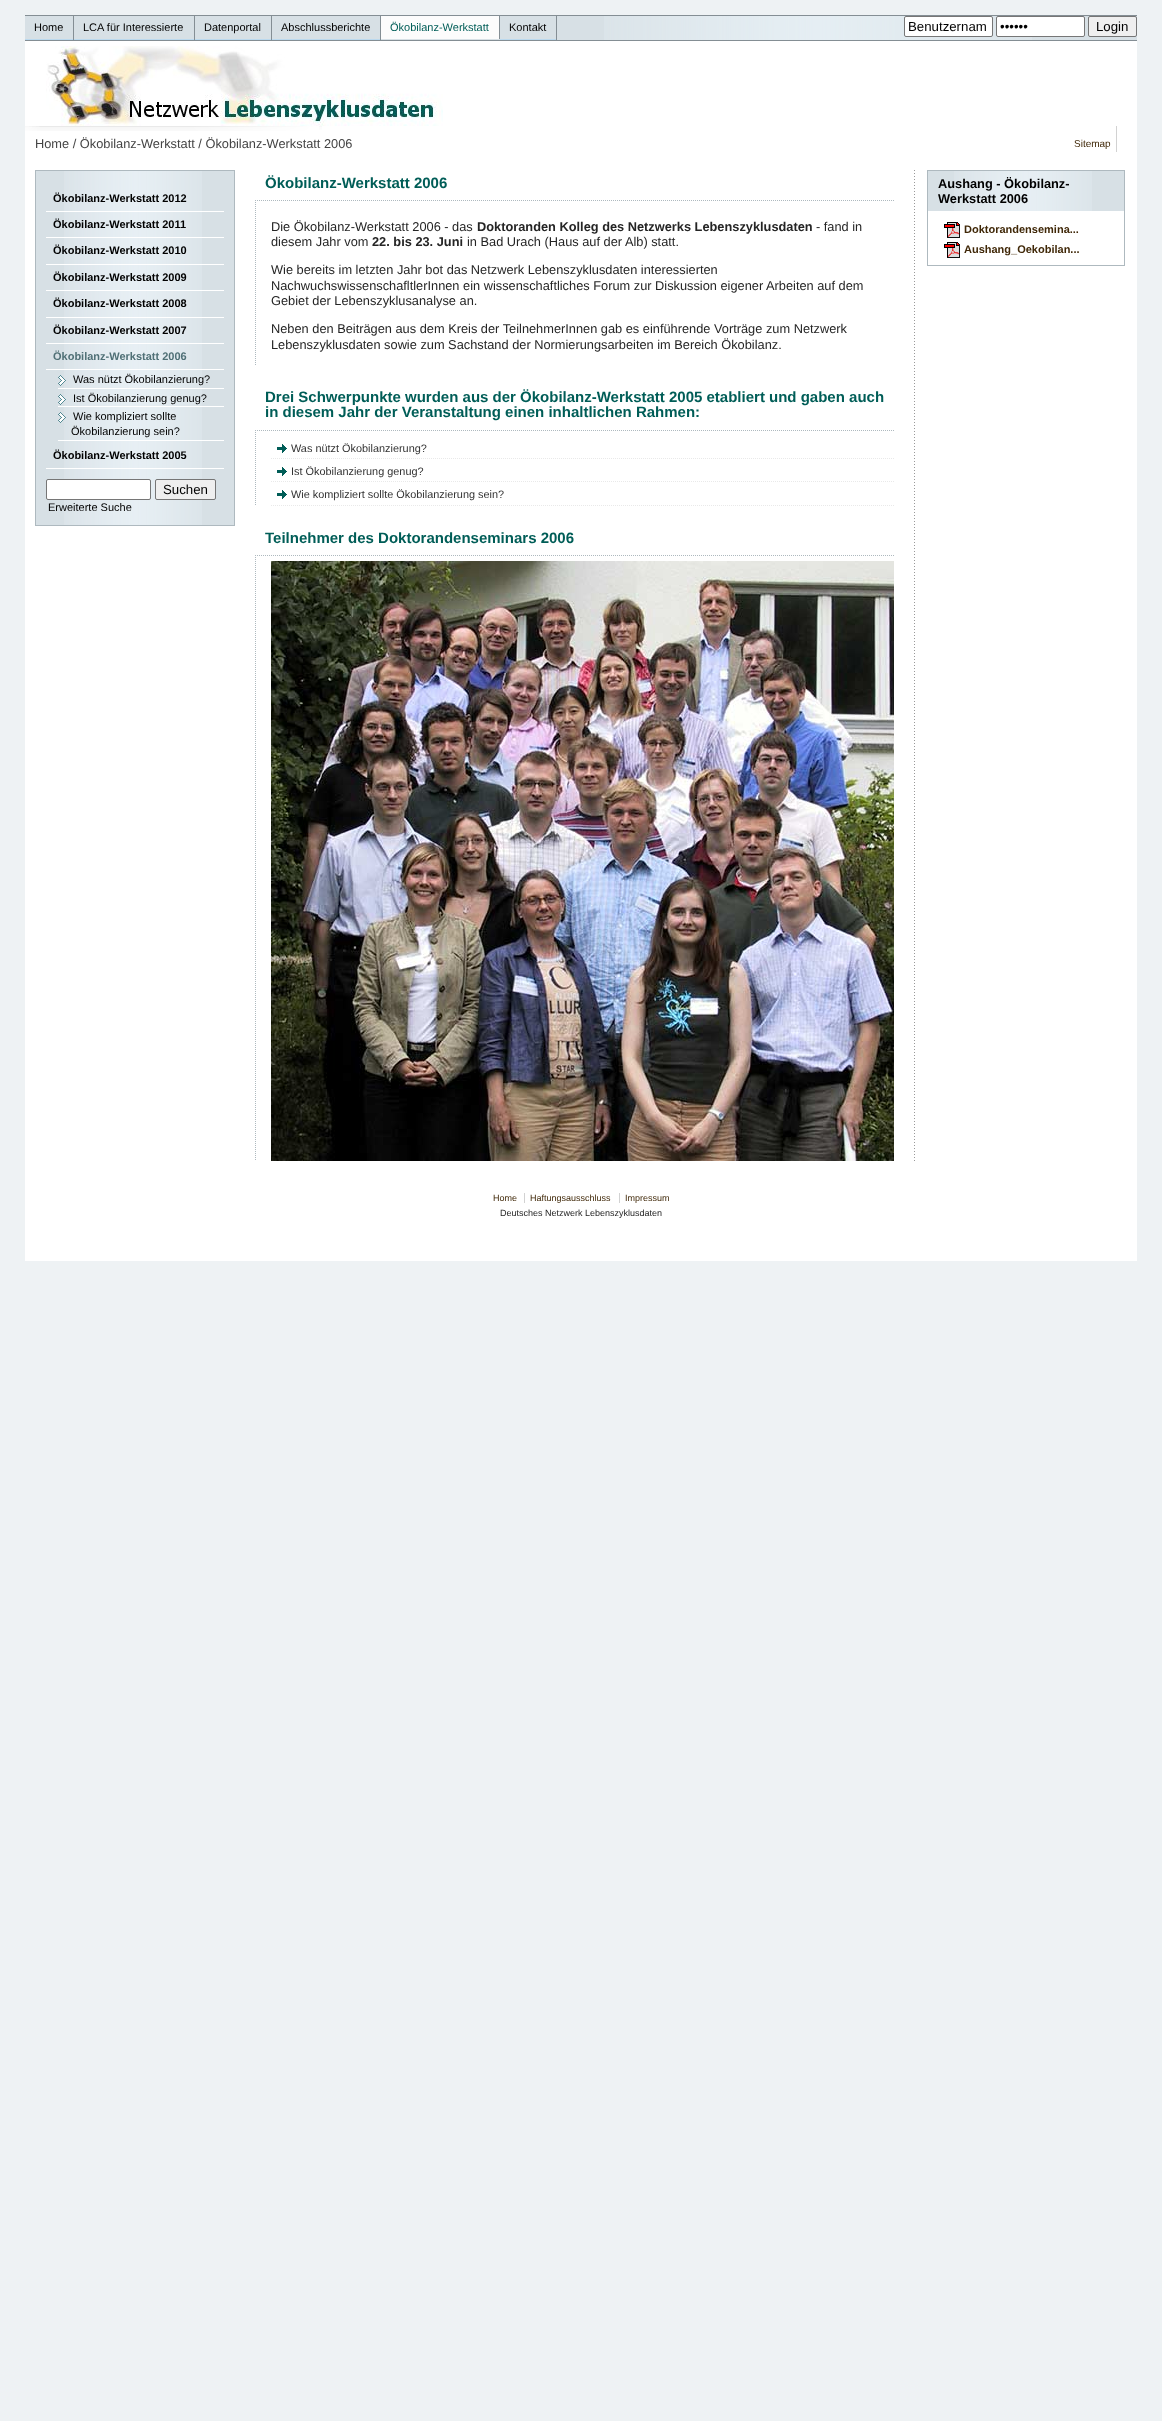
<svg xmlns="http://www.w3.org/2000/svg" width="1162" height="2421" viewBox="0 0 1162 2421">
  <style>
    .t1 { font: 11px Liberation Sans; fill: #000; }
    .t2 { font: 11px Liberation Sans; fill: #005d57; }
    .t3 { font: 13.25px Liberation Sans; fill: #000; }
    .t4 { font: 12.8px Liberation Sans; fill: #444; }
    .t5 { font: 10px Liberation Sans; fill: #402808; }
    .t6 { font: bold 11px Liberation Sans; fill: #000; }
    .t7 { font: bold 11px Liberation Sans; fill: #507076; }
    .t8 { font: bold 15px Liberation Sans; fill: #005d57; }
    .t9 { font: 12.8px Liberation Sans; fill: #252525; }
    .t10 { font: bold 12.8px Liberation Sans; fill: #252525; }
    .t11 { font: 10.9px Liberation Sans; fill: #333; }
    .t12 { font: bold 12.8px Liberation Sans; fill: #000; }
    .t13 { font: bold 11px Liberation Sans; fill: #402808; }
    .t14 { font: 9px Liberation Sans; fill: #402808; }
    .t15 { font: 9px Liberation Sans; fill: #252525; }
  </style>
  <rect width="100%" height="100%" fill="#eef2f4"/>
  <rect x="25" y="41" width="1112" height="1220" fill="#fff"/>
  <rect x="25" y="16" width="1112" height="24" fill="#d7e0e5"/>
  <image x="604" y="16" width="428" height="24" href="images/1.png"/>
  <rect x="25" y="15" width="1112" height="1" fill="#848e94"/>
  <rect x="25" y="40" width="1112" height="1" fill="#848e94"/>
  <rect x="73" y="16" width="1" height="24" fill="#848e94"/>
  <rect x="25" y="39" width="48" height="1" fill="#bbd9ee"/>
  <text x="34" y="31" class="t1">Home</text>
  <rect x="194" y="16" width="1" height="24" fill="#848e94"/>
  <rect x="74" y="39" width="120" height="1" fill="#bbd9ee"/>
  <text x="83" y="31" class="t1">LCA für Interessierte</text>
  <rect x="271" y="16" width="1" height="24" fill="#848e94"/>
  <rect x="195" y="39" width="76" height="1" fill="#bbd9ee"/>
  <text x="204" y="31" class="t1">Datenportal</text>
  <rect x="380" y="16" width="1" height="24" fill="#848e94"/>
  <rect x="272" y="39" width="108" height="1" fill="#bbd9ee"/>
  <text x="281" y="31" class="t1">Abschlussberichte</text>
  <rect x="499" y="16" width="1" height="23" fill="#848e94"/>
  <rect x="381" y="16" width="118" height="23" fill="#fcfcfc"/>
  <text x="390" y="31" class="t2">Ökobilanz-Werkstatt</text>
  <rect x="556" y="16" width="1" height="24" fill="#848e94"/>
  <rect x="500" y="39" width="56" height="1" fill="#bbd9ee"/>
  <text x="509" y="31" class="t1">Kontakt</text>
  <rect x="904.5" y="16.5" width="88" height="20" rx="1.5" fill="#fff" stroke="#767676"/>
  <text x="908" y="31" class="t3">Benutzernam</text>
  <rect x="996.5" y="16.5" width="88" height="20" rx="1.5" fill="#fff" stroke="#767676"/>
  <text x="1000" y="31" class="t3">••••••</text>
  <rect x="1088.5" y="16.5" width="48" height="20" rx="1.5" fill="#efefef" stroke="#767676"/>
  <text x="1096" y="31" class="t3">Login</text>
  <image x="46" y="46" width="397" height="80" href="images/2.png"/>
  <image x="25" y="126" width="297" height="5" href="images/3.png"/>
  <text x="35" y="148" class="t4">Home / Ökobilanz-Werkstatt / Ökobilanz-Werkstatt 2006</text>
  <rect x="1116" y="126" width="1" height="26" fill="#d2d2d2"/>
  <text x="1074" y="147" class="t5">Sitemap</text>
  <rect x="36" y="171" width="198" height="354" fill="#d7e0e5"/>
  <image x="64" y="171" width="138" height="354" href="images/4.png"/>
  <rect x="35.5" y="170.5" width="199" height="355" fill="none" stroke="#aeb9bf"/>
  <rect x="46" y="211" width="178" height="1" fill="#fff"/>
  <text x="53" y="202" class="t6">Ökobilanz-Werkstatt 2012</text>
  <rect x="46" y="237" width="178" height="1" fill="#fff"/>
  <text x="53" y="228" class="t6">Ökobilanz-Werkstatt 2011</text>
  <rect x="46" y="264" width="178" height="1" fill="#fff"/>
  <text x="53" y="254" class="t6">Ökobilanz-Werkstatt 2010</text>
  <rect x="46" y="290" width="178" height="1" fill="#fff"/>
  <text x="53" y="281" class="t6">Ökobilanz-Werkstatt 2009</text>
  <rect x="46" y="317" width="178" height="1" fill="#fff"/>
  <text x="53" y="307" class="t6">Ökobilanz-Werkstatt 2008</text>
  <rect x="46" y="343" width="178" height="1" fill="#fff"/>
  <text x="53" y="334" class="t6">Ökobilanz-Werkstatt 2007</text>
  <rect x="46" y="369" width="178" height="1" fill="#fff"/>
  <text x="53" y="360" class="t7">Ökobilanz-Werkstatt 2006</text>
  <image x="58" y="375" width="8" height="11" href="images/5.png"/>
  <rect x="58" y="388" width="166" height="1" fill="#fff"/>
  <text x="73" y="383" class="t1">Was nützt Ökobilanzierung?</text>
  <image x="58" y="394" width="8" height="11" href="images/5.png"/>
  <rect x="58" y="406" width="166" height="1" fill="#fff"/>
  <text x="73" y="402" class="t1">Ist Ökobilanzierung genug?</text>
  <image x="58" y="412" width="8" height="11" href="images/5.png"/>
  <rect x="58" y="440" width="166" height="1" fill="#fff"/>
  <text x="73" y="420" class="t1">Wie kompliziert sollte</text>
  <text x="71" y="435" class="t1">Ökobilanzierung sein?</text>
  <rect x="46" y="468" width="178" height="1" fill="#fff"/>
  <text x="53" y="459" class="t6">Ökobilanz-Werkstatt 2005</text>
  <rect x="46.5" y="479.5" width="104" height="20" rx="1.5" fill="#fff" stroke="#767676"/>
  <rect x="155.5" y="479.5" width="60" height="20" rx="1.5" fill="#efefef" stroke="#767676"/>
  <text x="163" y="494" class="t3">Suchen</text>
  <text x="48" y="511" class="t1">Erweiterte Suche</text>
  <image x="914" y="170" width="1" height="991" href="images/6.png"/>
  <text x="265" y="188" class="t8">Ökobilanz-Werkstatt 2006</text>
  <path d="M255 200.5H894" fill="none" stroke="#aeb9bf" stroke-dasharray="1 1"/>
  <path d="M255.5 200V365" fill="none" stroke="#aeb9bf" stroke-dasharray="1 1"/>
  <text x="271" y="231" class="t9">Die Ökobilanz-Werkstatt 2006 - das</text>
  <text x="477" y="231" class="t10">Doktoranden Kolleg des Netzwerks Lebenszyklusdaten</text>
  <text x="816" y="231" class="t9">- fand in</text>
  <text x="271" y="246" class="t9">diesem Jahr vom</text>
  <text x="372" y="246" class="t10">22. bis 23. Juni</text>
  <text x="467" y="246" class="t9">in Bad Urach (Haus auf der Alb) statt.</text>
  <text x="271" y="274" class="t9">Wie bereits im letzten Jahr bot das Netzwerk Lebenszyklusdaten interessierten</text>
  <text x="271" y="290" class="t9">NachwuchswissenschafltlerInnen ein wissenschaftliches Forum zur Diskussion eigener Arbeiten auf dem</text>
  <text x="271" y="305" class="t9">Gebiet der Lebenszyklusanalyse an.</text>
  <text x="271" y="333" class="t9">Neben den Beiträgen aus dem Kreis der TeilnehmerInnen gab es einführende Vorträge zum Netzwerk</text>
  <text x="271" y="349" class="t9">Lebenszyklusdaten sowie zum Sachstand der Normierungsarbeiten im Bereich Ökobilanz.</text>
  <text x="265" y="402" class="t8">Drei Schwerpunkte wurden aus der Ökobilanz-Werkstatt 2005 etabliert und gaben auch</text>
  <text x="265" y="417" class="t8">in diesem Jahr der Veranstaltung einen inhaltlichen Rahmen:</text>
  <path d="M255 430.5H894" fill="none" stroke="#aeb9bf" stroke-dasharray="1 1"/>
  <path d="M255.5 430V506" fill="none" stroke="#aeb9bf" stroke-dasharray="1 1"/>
  <image x="277" y="444" width="10" height="9" href="images/7.png"/>
  <path d="M271 458.5H894" fill="none" stroke="#e9e9e9" stroke-dasharray="1 1"/>
  <text x="291" y="452" class="t11">Was nützt Ökobilanzierung?</text>
  <image x="277" y="467" width="10" height="9" href="images/7.png"/>
  <path d="M271 481.5H894" fill="none" stroke="#e9e9e9" stroke-dasharray="1 1"/>
  <text x="291" y="475" class="t11">Ist Ökobilanzierung genug?</text>
  <image x="277" y="490" width="10" height="9" href="images/7.png"/>
  <path d="M271 505.5H894" fill="none" stroke="#e9e9e9" stroke-dasharray="1 1"/>
  <text x="291" y="498" class="t11">Wie kompliziert sollte Ökobilanzierung sein?</text>
  <text x="265" y="543" class="t8">Teilnehmer des Doktorandenseminars 2006</text>
  <path d="M255 555.5H894" fill="none" stroke="#aeb9bf" stroke-dasharray="1 1"/>
  <path d="M255.5 555V1161" fill="none" stroke="#aeb9bf" stroke-dasharray="1 1"/>
  <image x="271" y="561" width="623" height="600" href="images/8.png"/>
  <rect x="927.5" y="170.5" width="197" height="95" fill="none" stroke="#aeb9bf"/>
  <rect x="928" y="171" width="196" height="40" fill="#d7e0e5"/>
  <image x="954" y="171" width="138" height="40" href="images/9.png"/>
  <text x="938" y="188" class="t12">Aushang - Ökobilanz-</text>
  <text x="938" y="203" class="t12">Werkstatt 2006</text>
  <image x="944" y="222" width="16" height="16" href="images/10.png"/>
  <text x="964" y="233" class="t13">Doktorandensemina...</text>
  <image x="944" y="242" width="16" height="16" href="images/10.png"/>
  <text x="964" y="253" class="t13">Aushang_Oekobilan...</text>
  <text x="493" y="1201" class="t14">Home</text>
  <text x="530" y="1201" class="t14">Haftungsausschluss</text>
  <rect x="524" y="1193" width="1" height="10" fill="#d2d2d2"/>
  <text x="625" y="1201" class="t14">Impressum</text>
  <rect x="619" y="1193" width="1" height="10" fill="#d2d2d2"/>
  <text x="500" y="1216" class="t15">Deutsches Netzwerk Lebenszyklusdaten</text>
</svg>
